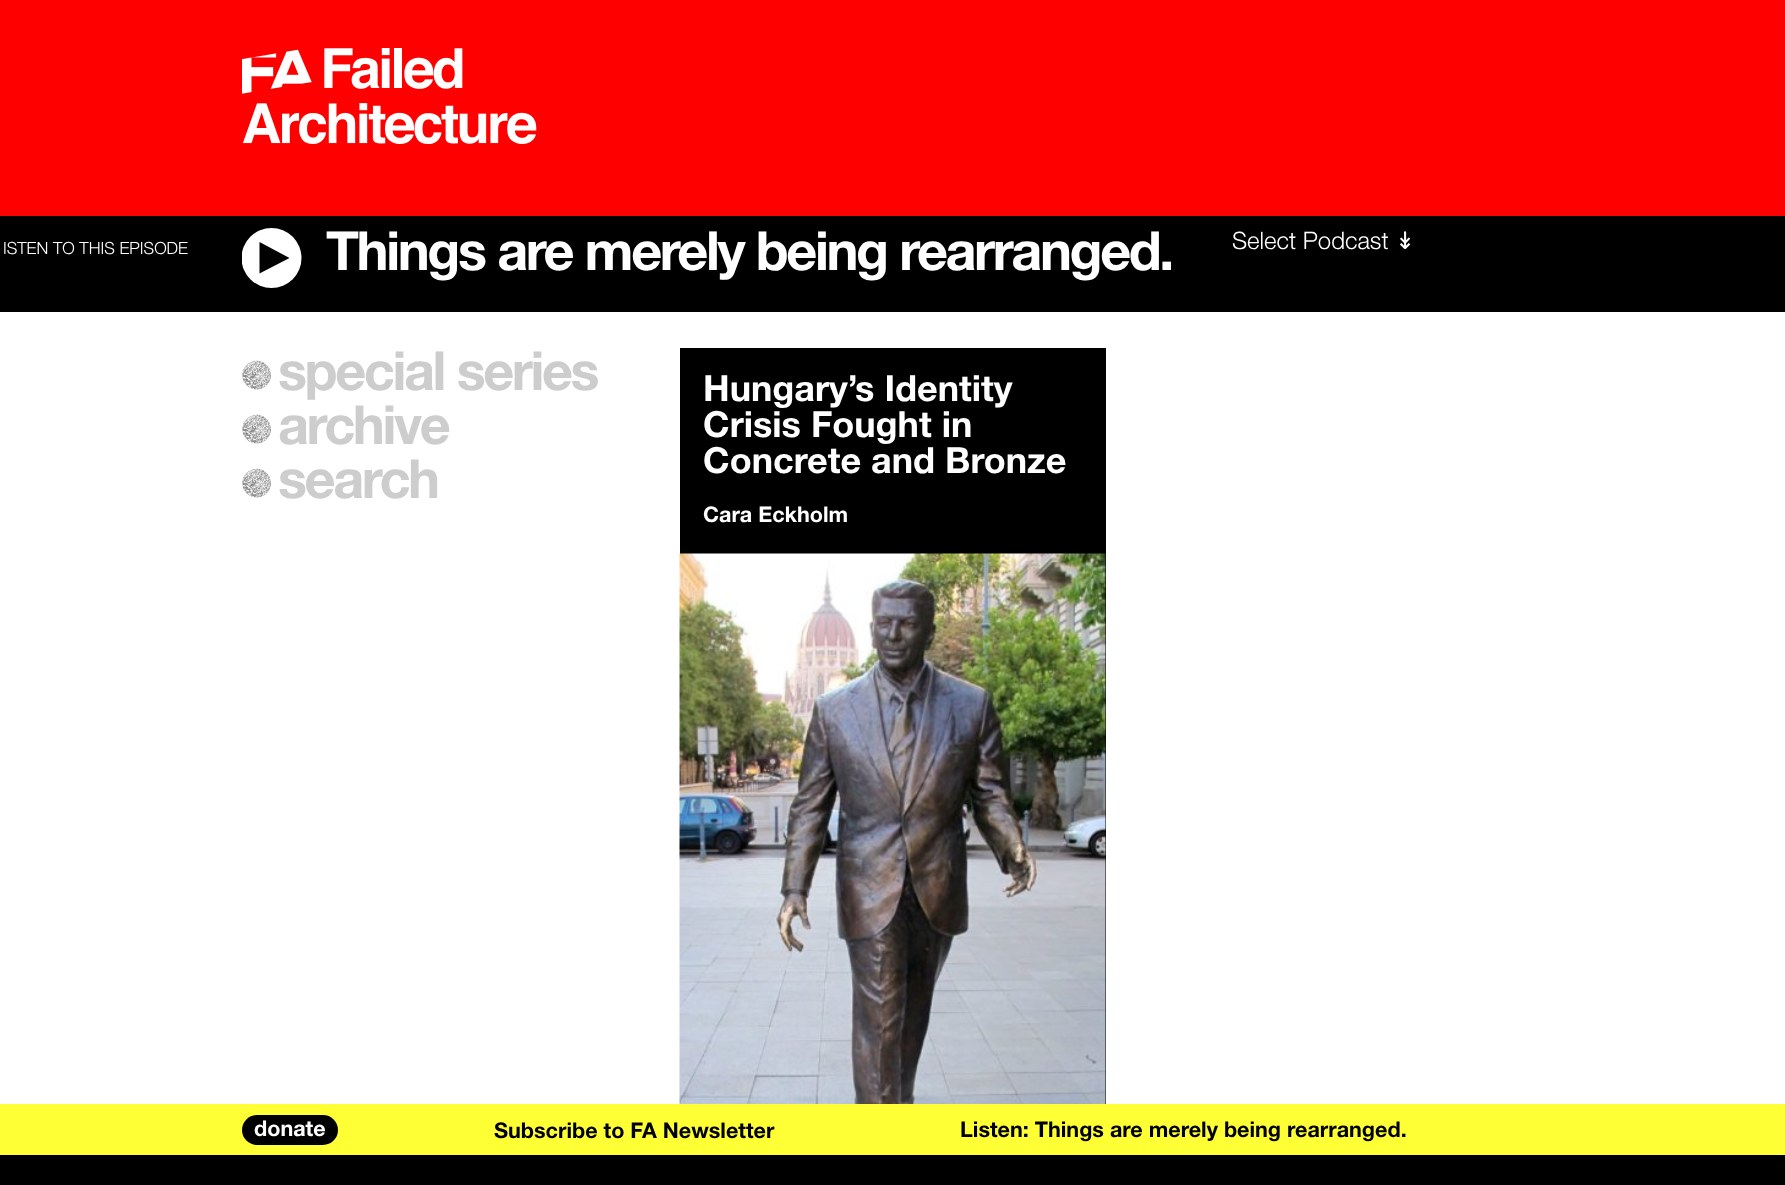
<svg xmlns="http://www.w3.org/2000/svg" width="1785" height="1185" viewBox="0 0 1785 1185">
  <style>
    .t1 { font: 16.75px 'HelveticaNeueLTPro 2'; fill: #fff; }
    .t2 { font: 54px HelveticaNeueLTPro; letter-spacing: -2.4px; fill: #fff; }
    .t3 { font: 24px 'HelveticaNeueLTPro 2'; fill: #fff; }
    .t4 { font: 24px DejaVu Sans; fill: #fff; }
    .t5 { font: 54px HelveticaNeueLTPro; letter-spacing: -2.4px; fill: #cdcdcd; }
    .t6 { font: 36px HelveticaNeueLTPro; fill: #fff; }
    .t7 { font: 21.6px HelveticaNeueLTPro; fill: #fff; }
    .t8 { font: 21.6px HelveticaNeueLTPro; fill: #000; }
  </style>
  <defs>
    <clipPath id="clip1"><rect x="242" y="228" width="60" height="60"/></clipPath>
  </defs>
  <rect width="100%" height="100%" fill="#fff"/>
  <rect x="0" y="0" width="1785" height="216" fill="#f00"/>
  <image x="242" y="48" width="295" height="96" href="images/1.png"/>
  <rect x="0" y="216" width="1785" height="96" fill="#000"/>
  <text x="3" y="254" class="t1">ISTEN TO THIS EPISODE</text>
  <g clip-path="url(#clip1)">
    <circle cx="271.5" cy="258" r="30" fill="#fff"/>
  </g>
  <path d="M289.5 258L259.5 273.5V242" fill="#010101"/>
  <text x="326" y="270" class="t2">Things are merely being rearranged.</text>
  <text x="1232" y="249" class="t3">Select Podcast</text>
  <text x="1395" y="249" class="t4">↡</text>
  <image x="242" y="360" width="29" height="30" href="images/2.png"/>
  <text x="278" y="390" class="t5">special series</text>
  <image x="242" y="414" width="29" height="30" href="images/2.png"/>
  <text x="278" y="444" class="t5">archive</text>
  <image x="242" y="468" width="29" height="30" href="images/2.png"/>
  <text x="278" y="498" class="t5">search</text>
  <rect x="680" y="348" width="426" height="756" fill="#000"/>
  <text x="703" y="401" class="t6">Hungary’s Identity</text>
  <text x="703" y="437" class="t6">Crisis Fought in</text>
  <text x="703" y="473" class="t6">Concrete and Bronze</text>
  <text x="703" y="522" class="t7">Cara Eckholm</text>
  <image x="679" y="553" width="427" height="551" href="images/3.png"/>
  <rect x="0" y="1104" width="1785" height="51" fill="#ffff36"/>
  <rect x="0" y="1155" width="1785" height="30" fill="#000"/>
  <rect x="242" y="1115" width="96" height="30" rx="15" fill="#000"/>
  <text x="254" y="1136" class="t7">donate</text>
  <text x="494" y="1138" class="t8">Subscribe to FA Newsletter</text>
  <text x="960" y="1137" class="t8">Listen: Things are merely being rearranged.</text>
</svg>
